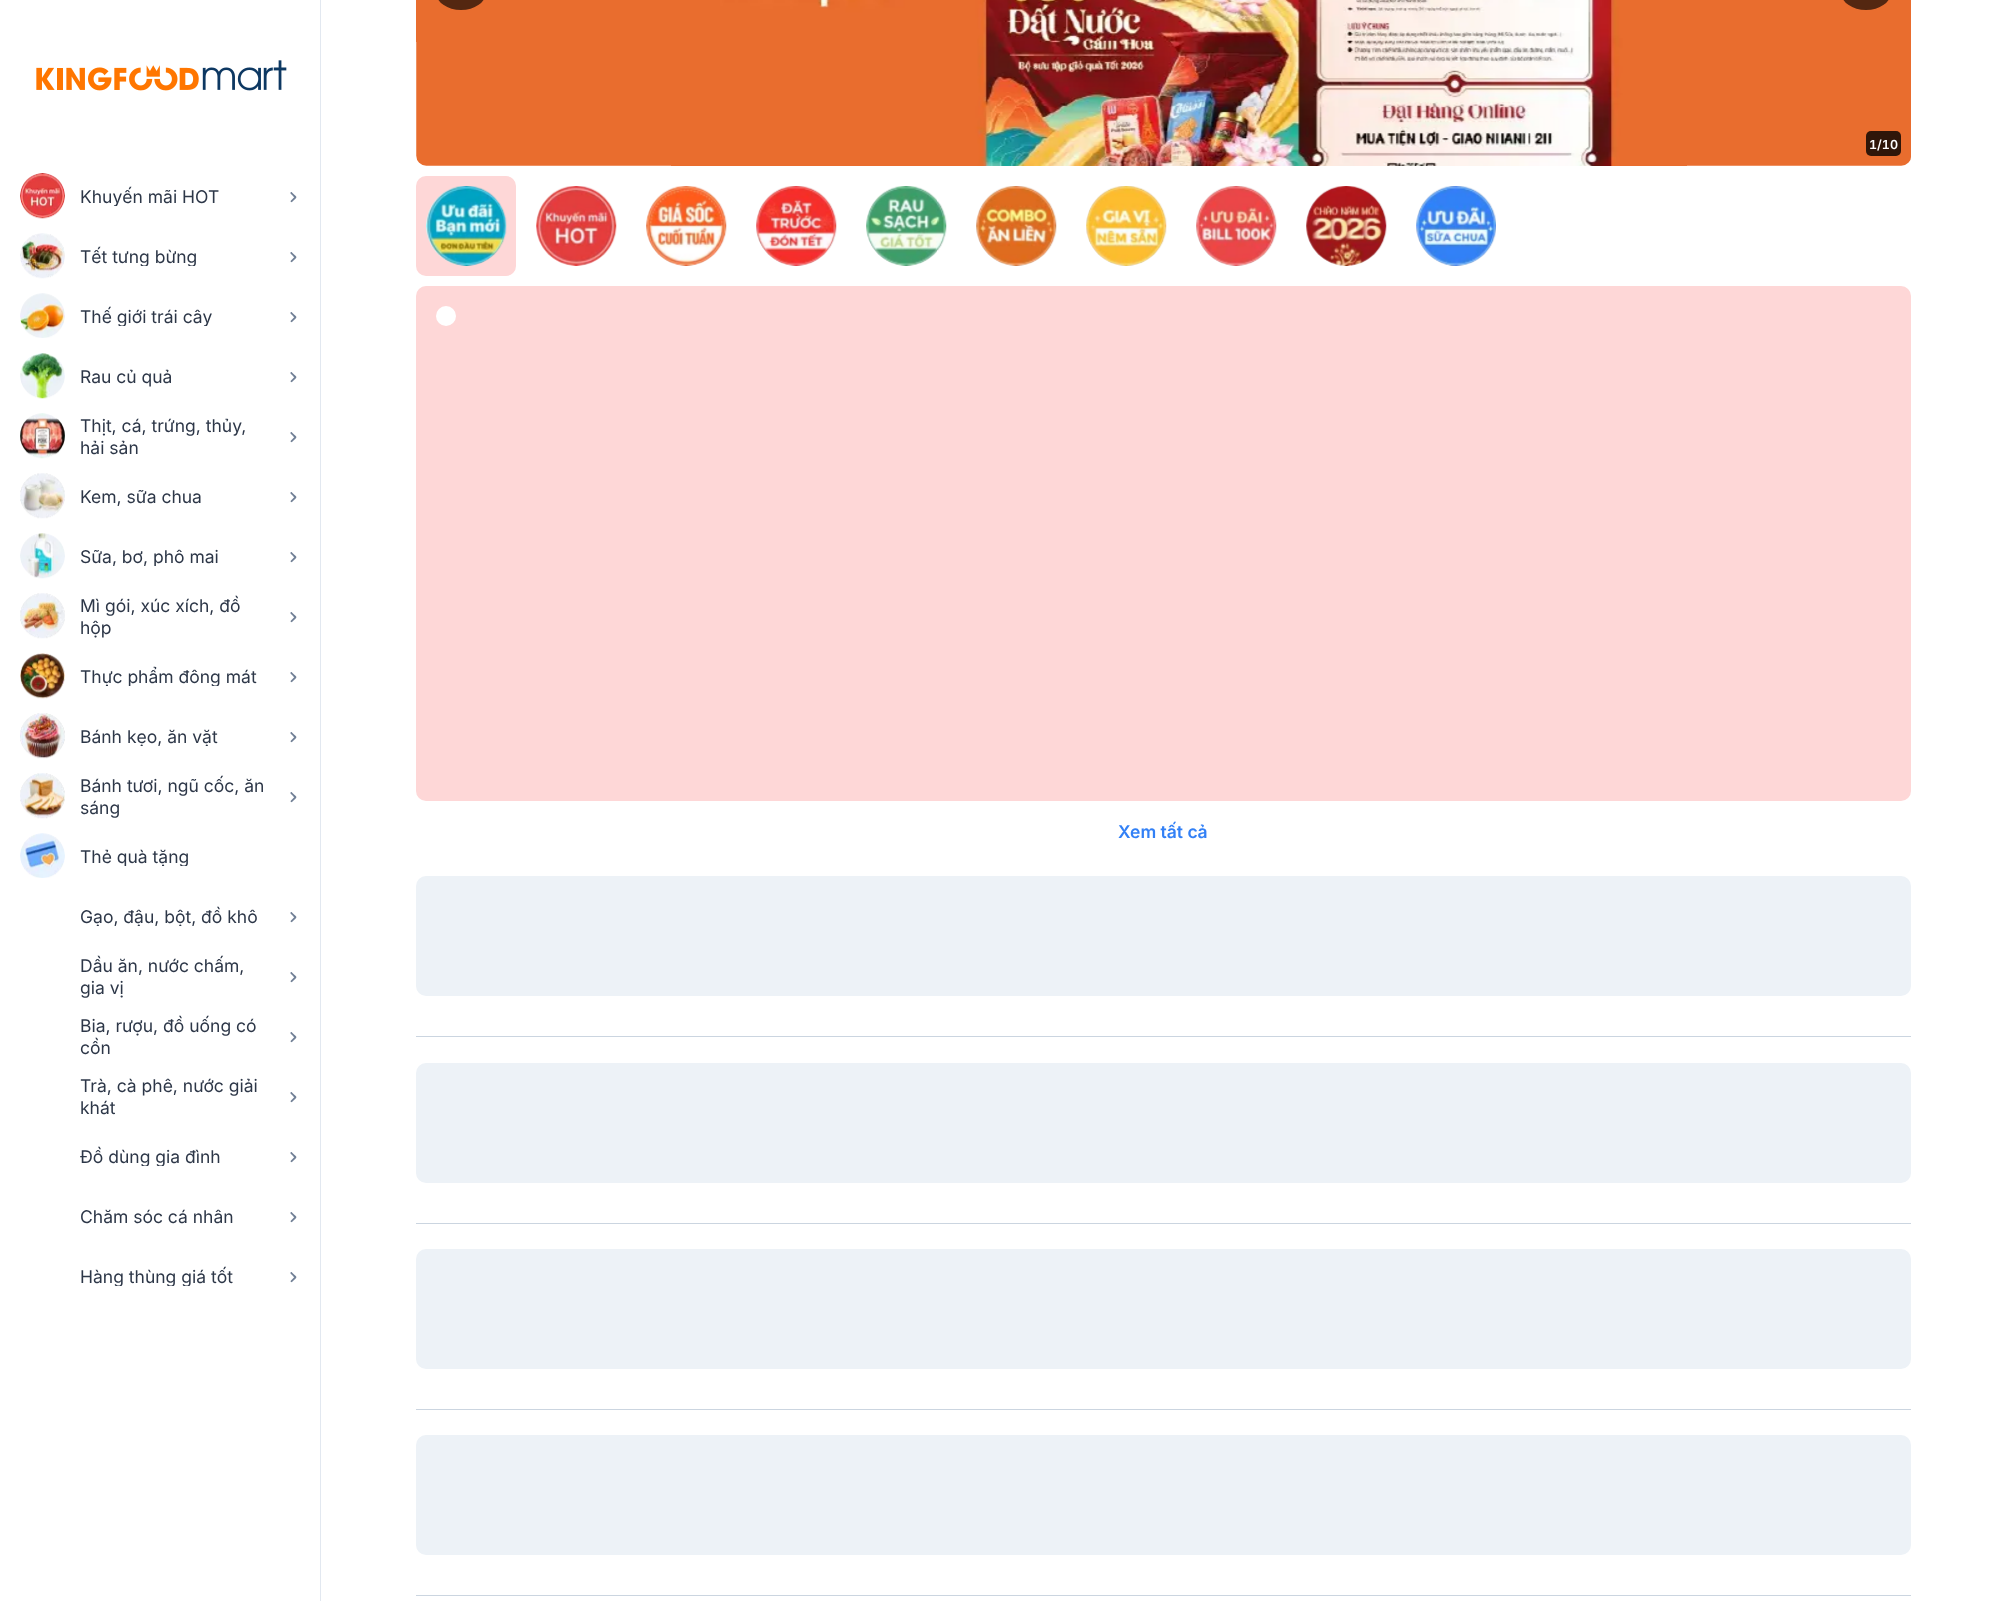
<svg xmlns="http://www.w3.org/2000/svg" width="2004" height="1601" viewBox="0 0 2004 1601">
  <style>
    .t1 { font: 17.5px Inter; fill: #2d3748; }
    .t2 { font: 600 12.5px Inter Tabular; fill: #fff; }
    .t3 { font: 600 17.5px Inter; fill: #3280f6; }
  </style>
  <defs>
    <clipPath id="clip1"><rect x="80" y="185" width="235" height="21"/></clipPath>
    <clipPath id="clip2"><rect x="80" y="245" width="235" height="21"/></clipPath>
    <clipPath id="clip3"><rect x="80" y="305" width="235" height="21"/></clipPath>
    <clipPath id="clip4"><rect x="80" y="545" width="235" height="21"/></clipPath>
    <clipPath id="clip5"><rect x="80" y="665" width="235" height="21"/></clipPath>
    <clipPath id="clip6"><rect x="80" y="725" width="235" height="21"/></clipPath>
    <clipPath id="clip7"><rect x="80" y="845" width="235" height="21"/></clipPath>
    <clipPath id="clip8"><rect x="80" y="905" width="235" height="21"/></clipPath>
    <clipPath id="clip9"><rect x="80" y="1145" width="235" height="21"/></clipPath>
    <clipPath id="clip10"><rect x="80" y="1265" width="235" height="21"/></clipPath>
  </defs>
  <rect width="100%" height="100%" fill="#fff"/>
  <rect x="320" y="0" width="1" height="1601" fill="#e2e8f0"/>
  <image x="36" y="60" width="251" height="31" href="images/1.png"/>
  <image x="20" y="173" width="45" height="46" href="images/2.png"/>
  <g clip-path="url(#clip1)">
    <text x="80" y="203" class="t1">Khuyến mãi HOT</text>
  </g>
  <path d="M292 192.5L294 194.5C294.5 195 297 196.5 296 197.5C295 199 292.5 195.5 292 195L290.5 193.5C290 192.5 291.5 191.5 292 192.5Z" fill="#718096"/>
  <path d="M291 200.5L293 198.5C293.5 198 295 196 296 196.5C297.5 197.5 294 200 293.5 200.5L292 202C291 202.5 290 201.5 291 200.5Z" fill="#718096"/>
  <image x="20" y="233" width="45" height="46" href="images/3.png"/>
  <g clip-path="url(#clip2)">
    <text x="80" y="263" class="t1">Tết tưng bừng</text>
  </g>
  <path d="M292 252.5L294 254.5C294.5 255 297 256.5 296 257.5C295 259 292.5 255.5 292 255L290.5 253.5C290 252.5 291.5 251.5 292 252.5Z" fill="#718096"/>
  <path d="M291 260.5L293 258.5C293.5 258 295 256 296 256.5C297.5 257.5 294 260 293.5 260.5L292 262C291 262.5 290 261.5 291 260.5Z" fill="#718096"/>
  <image x="20" y="293" width="45" height="45" href="images/4.png"/>
  <g clip-path="url(#clip3)">
    <text x="80" y="323" class="t1">Thế giới trái cây</text>
  </g>
  <path d="M292 312.5L294 314.5C294.5 315 297 316.5 296 317.5C295 319 292.5 315.5 292 315L290.5 313.5C290 312.5 291.5 311.5 292 312.5Z" fill="#718096"/>
  <path d="M291 320.5L293 318.5C293.5 318 295 316 296 316.5C297.5 317.5 294 320 293.5 320.5L292 322C291 322.5 290 321.5 291 320.5Z" fill="#718096"/>
  <image x="20" y="353" width="45" height="46" href="images/5.png"/>
  <text x="80" y="383" class="t1">Rau củ quả</text>
  <path d="M292 372.5L294 374.5C294.5 375 297 376.5 296 377.5C295 379 292.5 375.5 292 375L290.5 373.5C290 372.5 291.5 371.5 292 372.5Z" fill="#718096"/>
  <path d="M291 380.5L293 378.5C293.5 378 295 376 296 376.5C297.5 377.5 294 380 293.5 380.5L292 382C291 382.5 290 381.5 291 380.5Z" fill="#718096"/>
  <image x="20" y="413" width="45" height="46" href="images/6.png"/>
  <text x="80" y="432" class="t1">Thịt, cá, trứng, thủy,</text>
  <text x="80" y="454" class="t1">hải sản</text>
  <path d="M292 432.5L294 434.5C294.5 435 297 436.5 296 437.5C295 439 292.5 435.5 292 435L290.5 433.5C290 432.5 291.5 431.5 292 432.5Z" fill="#718096"/>
  <path d="M291 440.5L293 438.5C293.5 438 295 436 296 436.5C297.5 437.5 294 440 293.5 440.5L292 442C291 442.5 290 441.5 291 440.5Z" fill="#718096"/>
  <image x="20" y="473" width="45" height="46" href="images/7.png"/>
  <text x="80" y="503" class="t1">Kem, sữa chua</text>
  <path d="M292 492.5L294 494.5C294.5 495 297 496.5 296 497.5C295 499 292.5 495.5 292 495L290.5 493.5C290 492.5 291.5 491.5 292 492.5Z" fill="#718096"/>
  <path d="M291 500.5L293 498.5C293.5 498 295 496 296 496.5C297.5 497.5 294 500 293.5 500.5L292 502C291 502.5 290 501.5 291 500.5Z" fill="#718096"/>
  <image x="20" y="533" width="45" height="46" href="images/8.png"/>
  <g clip-path="url(#clip4)">
    <text x="80" y="563" class="t1">Sữa, bơ, phô mai</text>
  </g>
  <path d="M292 552.5L294 554.5C294.5 555 297 556.5 296 557.5C295 559 292.5 555.5 292 555L290.5 553.5C290 552.5 291.5 551.5 292 552.5Z" fill="#718096"/>
  <path d="M291 560.5L293 558.5C293.5 558 295 556 296 556.5C297.5 557.5 294 560 293.5 560.5L292 562C291 562.5 290 561.5 291 560.5Z" fill="#718096"/>
  <image x="20" y="593" width="45" height="46" href="images/9.png"/>
  <text x="80" y="612" class="t1">Mì gói, xúc xích, đồ</text>
  <text x="80" y="634" class="t1">hộp</text>
  <path d="M292 612.5L294 614.5C294.5 615 297 616.5 296 617.5C295 619 292.5 615.5 292 615L290.5 613.5C290 612.5 291.5 611.5 292 612.5Z" fill="#718096"/>
  <path d="M291 620.5L293 618.5C293.5 618 295 616 296 616.5C297.5 617.5 294 620 293.5 620.5L292 622C291 622.5 290 621.5 291 620.5Z" fill="#718096"/>
  <image x="20" y="653" width="45" height="46" href="images/10.png"/>
  <g clip-path="url(#clip5)">
    <text x="80" y="683" class="t1">Thực phẩm đông mát</text>
  </g>
  <path d="M292 672.5L294 674.5C294.5 675 297 676.5 296 677.5C295 679 292.5 675.5 292 675L290.5 673.5C290 672.5 291.5 671.5 292 672.5Z" fill="#718096"/>
  <path d="M291 680.5L293 678.5C293.5 678 295 676 296 676.5C297.5 677.5 294 680 293.5 680.5L292 682C291 682.5 290 681.5 291 680.5Z" fill="#718096"/>
  <image x="20" y="713" width="45" height="46" href="images/11.png"/>
  <g clip-path="url(#clip6)">
    <text x="80" y="743" class="t1">Bánh kẹo, ăn vặt</text>
  </g>
  <path d="M292 732.5L294 734.5C294.5 735 297 736.5 296 737.5C295 739 292.5 735.5 292 735L290.5 733.5C290 732.5 291.5 731.5 292 732.5Z" fill="#718096"/>
  <path d="M291 740.5L293 738.5C293.5 738 295 736 296 736.5C297.5 737.5 294 740 293.5 740.5L292 742C291 742.5 290 741.5 291 740.5Z" fill="#718096"/>
  <image x="20" y="773" width="45" height="46" href="images/12.png"/>
  <text x="80" y="792" class="t1">Bánh tươi, ngũ cốc, ăn</text>
  <text x="80" y="814" class="t1">sáng</text>
  <path d="M292 792.5L294 794.5C294.5 795 297 796.5 296 797.5C295 799 292.5 795.5 292 795L290.5 793.5C290 792.5 291.5 791.5 292 792.5Z" fill="#718096"/>
  <path d="M291 800.5L293 798.5C293.5 798 295 796 296 796.5C297.5 797.5 294 800 293.5 800.5L292 802C291 802.5 290 801.5 291 800.5Z" fill="#718096"/>
  <image x="20" y="833" width="45" height="45" href="images/13.png"/>
  <g clip-path="url(#clip7)">
    <text x="80" y="863" class="t1">Thẻ quà tặng</text>
  </g>
  <g clip-path="url(#clip8)">
    <text x="80" y="923" class="t1">Gạo, đậu, bột, đồ khô</text>
  </g>
  <path d="M292 912.5L294 914.5C294.5 915 297 916.5 296 917.5C295 919 292.5 915.5 292 915L290.5 913.5C290 912.5 291.5 911.5 292 912.5Z" fill="#718096"/>
  <path d="M291 920.5L293 918.5C293.5 918 295 916 296 916.5C297.5 917.5 294 920 293.5 920.5L292 922C291 922.5 290 921.5 291 920.5Z" fill="#718096"/>
  <text x="80" y="972" class="t1">Dầu ăn, nước chấm,</text>
  <text x="80" y="994" class="t1">gia vị</text>
  <path d="M292 972.5L294 974.5C294.5 975 297 976.5 296 977.5C295 979 292.5 975.5 292 975L290.5 973.5C290 972.5 291.5 971.5 292 972.5Z" fill="#718096"/>
  <path d="M291 980.5L293 978.5C293.5 978 295 976 296 976.5C297.5 977.5 294 980 293.5 980.5L292 982C291 982.5 290 981.5 291 980.5Z" fill="#718096"/>
  <text x="80" y="1032" class="t1">Bia, rượu, đồ uống có</text>
  <text x="80" y="1054" class="t1">cồn</text>
  <path d="M292 1032.5L294 1034.5C294.5 1035 297 1036.5 296 1037.5C295 1039 292.5 1035.5 292 1035L290.5 1033.5C290 1032.5 291.5 1031.5 292 1032.5Z" fill="#718096"/>
  <path d="M291 1040.5L293 1038.5C293.5 1038 295 1036 296 1036.5C297.5 1037.5 294 1040 293.5 1040.5L292 1042C291 1042.5 290 1041.5 291 1040.5Z" fill="#718096"/>
  <text x="80" y="1092" class="t1">Trà, cà phê, nước giải</text>
  <text x="80" y="1114" class="t1">khát</text>
  <path d="M292 1092.5L294 1094.5C294.5 1095 297 1096.5 296 1097.5C295 1099 292.5 1095.5 292 1095L290.5 1093.5C290 1092.5 291.5 1091.5 292 1092.5Z" fill="#718096"/>
  <path d="M291 1100.5L293 1098.5C293.5 1098 295 1096 296 1096.5C297.5 1097.5 294 1100 293.5 1100.5L292 1102C291 1102.5 290 1101.5 291 1100.5Z" fill="#718096"/>
  <g clip-path="url(#clip9)">
    <text x="80" y="1163" class="t1">Đồ dùng gia đình</text>
  </g>
  <path d="M292 1152.5L294 1154.5C294.5 1155 297 1156.5 296 1157.5C295 1159 292.5 1155.5 292 1155L290.5 1153.5C290 1152.5 291.5 1151.5 292 1152.5Z" fill="#718096"/>
  <path d="M291 1160.5L293 1158.5C293.5 1158 295 1156 296 1156.5C297.5 1157.5 294 1160 293.5 1160.5L292 1162C291 1162.5 290 1161.5 291 1160.5Z" fill="#718096"/>
  <text x="80" y="1223" class="t1">Chăm sóc cá nhân</text>
  <path d="M292 1212.5L294 1214.5C294.5 1215 297 1216.5 296 1217.5C295 1219 292.5 1215.5 292 1215L290.5 1213.5C290 1212.5 291.5 1211.5 292 1212.5Z" fill="#718096"/>
  <path d="M291 1220.5L293 1218.5C293.5 1218 295 1216 296 1216.5C297.5 1217.5 294 1220 293.5 1220.5L292 1222C291 1222.5 290 1221.5 291 1220.5Z" fill="#718096"/>
  <g clip-path="url(#clip10)">
    <text x="80" y="1283" class="t1">Hàng thùng giá tốt</text>
  </g>
  <path d="M292 1272.5L294 1274.5C294.5 1275 297 1276.5 296 1277.5C295 1279 292.5 1275.5 292 1275L290.5 1273.5C290 1272.5 291.5 1271.5 292 1272.5Z" fill="#718096"/>
  <path d="M291 1280.5L293 1278.5C293.5 1278 295 1276 296 1276.5C297.5 1277.5 294 1280 293.5 1280.5L292 1282C291 1282.5 290 1281.5 291 1280.5Z" fill="#718096"/>
  <image x="416" y="0" width="1495" height="166" href="images/14.png"/>
  <rect x="436" y="-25" width="50" height="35" rx="25" fill="#542711"/>
  <rect x="1841" y="-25" width="50" height="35" rx="25" fill="#542711"/>
  <rect x="1866" y="131" width="35" height="25" rx="5" fill="#2f1609"/>
  <text x="1869" y="149" class="t2">1/10</text>
  <rect x="416" y="176" width="100" height="100" rx="10" fill="#fed7d7"/>
  <image x="426" y="186" width="81" height="80" href="images/15.png"/>
  <image x="536" y="186" width="81" height="80" href="images/16.png"/>
  <image x="646" y="186" width="81" height="80" href="images/17.png"/>
  <image x="756" y="186" width="81" height="80" href="images/18.png"/>
  <image x="866" y="186" width="81" height="80" href="images/19.png"/>
  <image x="976" y="186" width="81" height="80" href="images/20.png"/>
  <image x="1086" y="186" width="81" height="80" href="images/21.png"/>
  <image x="1196" y="186" width="81" height="80" href="images/22.png"/>
  <image x="1306" y="186" width="81" height="80" href="images/23.png"/>
  <image x="1416" y="186" width="80" height="80" href="images/24.png"/>
  <rect x="416" y="286" width="1495" height="515" rx="10" fill="#fed7d7"/>
  <circle cx="446" cy="316" r="10" fill="#fff"/>
  <text x="1118" y="838" class="t3">Xem tất cả</text>
  <rect x="416" y="1036" width="1495" height="1" fill="#cbd5e0"/>
  <rect x="416" y="876" width="1495" height="120" rx="10" fill="#edf2f7"/>
  <rect x="416" y="1223" width="1495" height="1" fill="#cbd5e0"/>
  <rect x="416" y="1063" width="1495" height="120" rx="10" fill="#edf2f7"/>
  <rect x="416" y="1409" width="1495" height="1" fill="#cbd5e0"/>
  <rect x="416" y="1249" width="1495" height="120" rx="10" fill="#edf2f7"/>
  <rect x="416" y="1595" width="1495" height="1" fill="#cbd5e0"/>
  <rect x="416" y="1435" width="1495" height="120" rx="10" fill="#edf2f7"/>
</svg>
